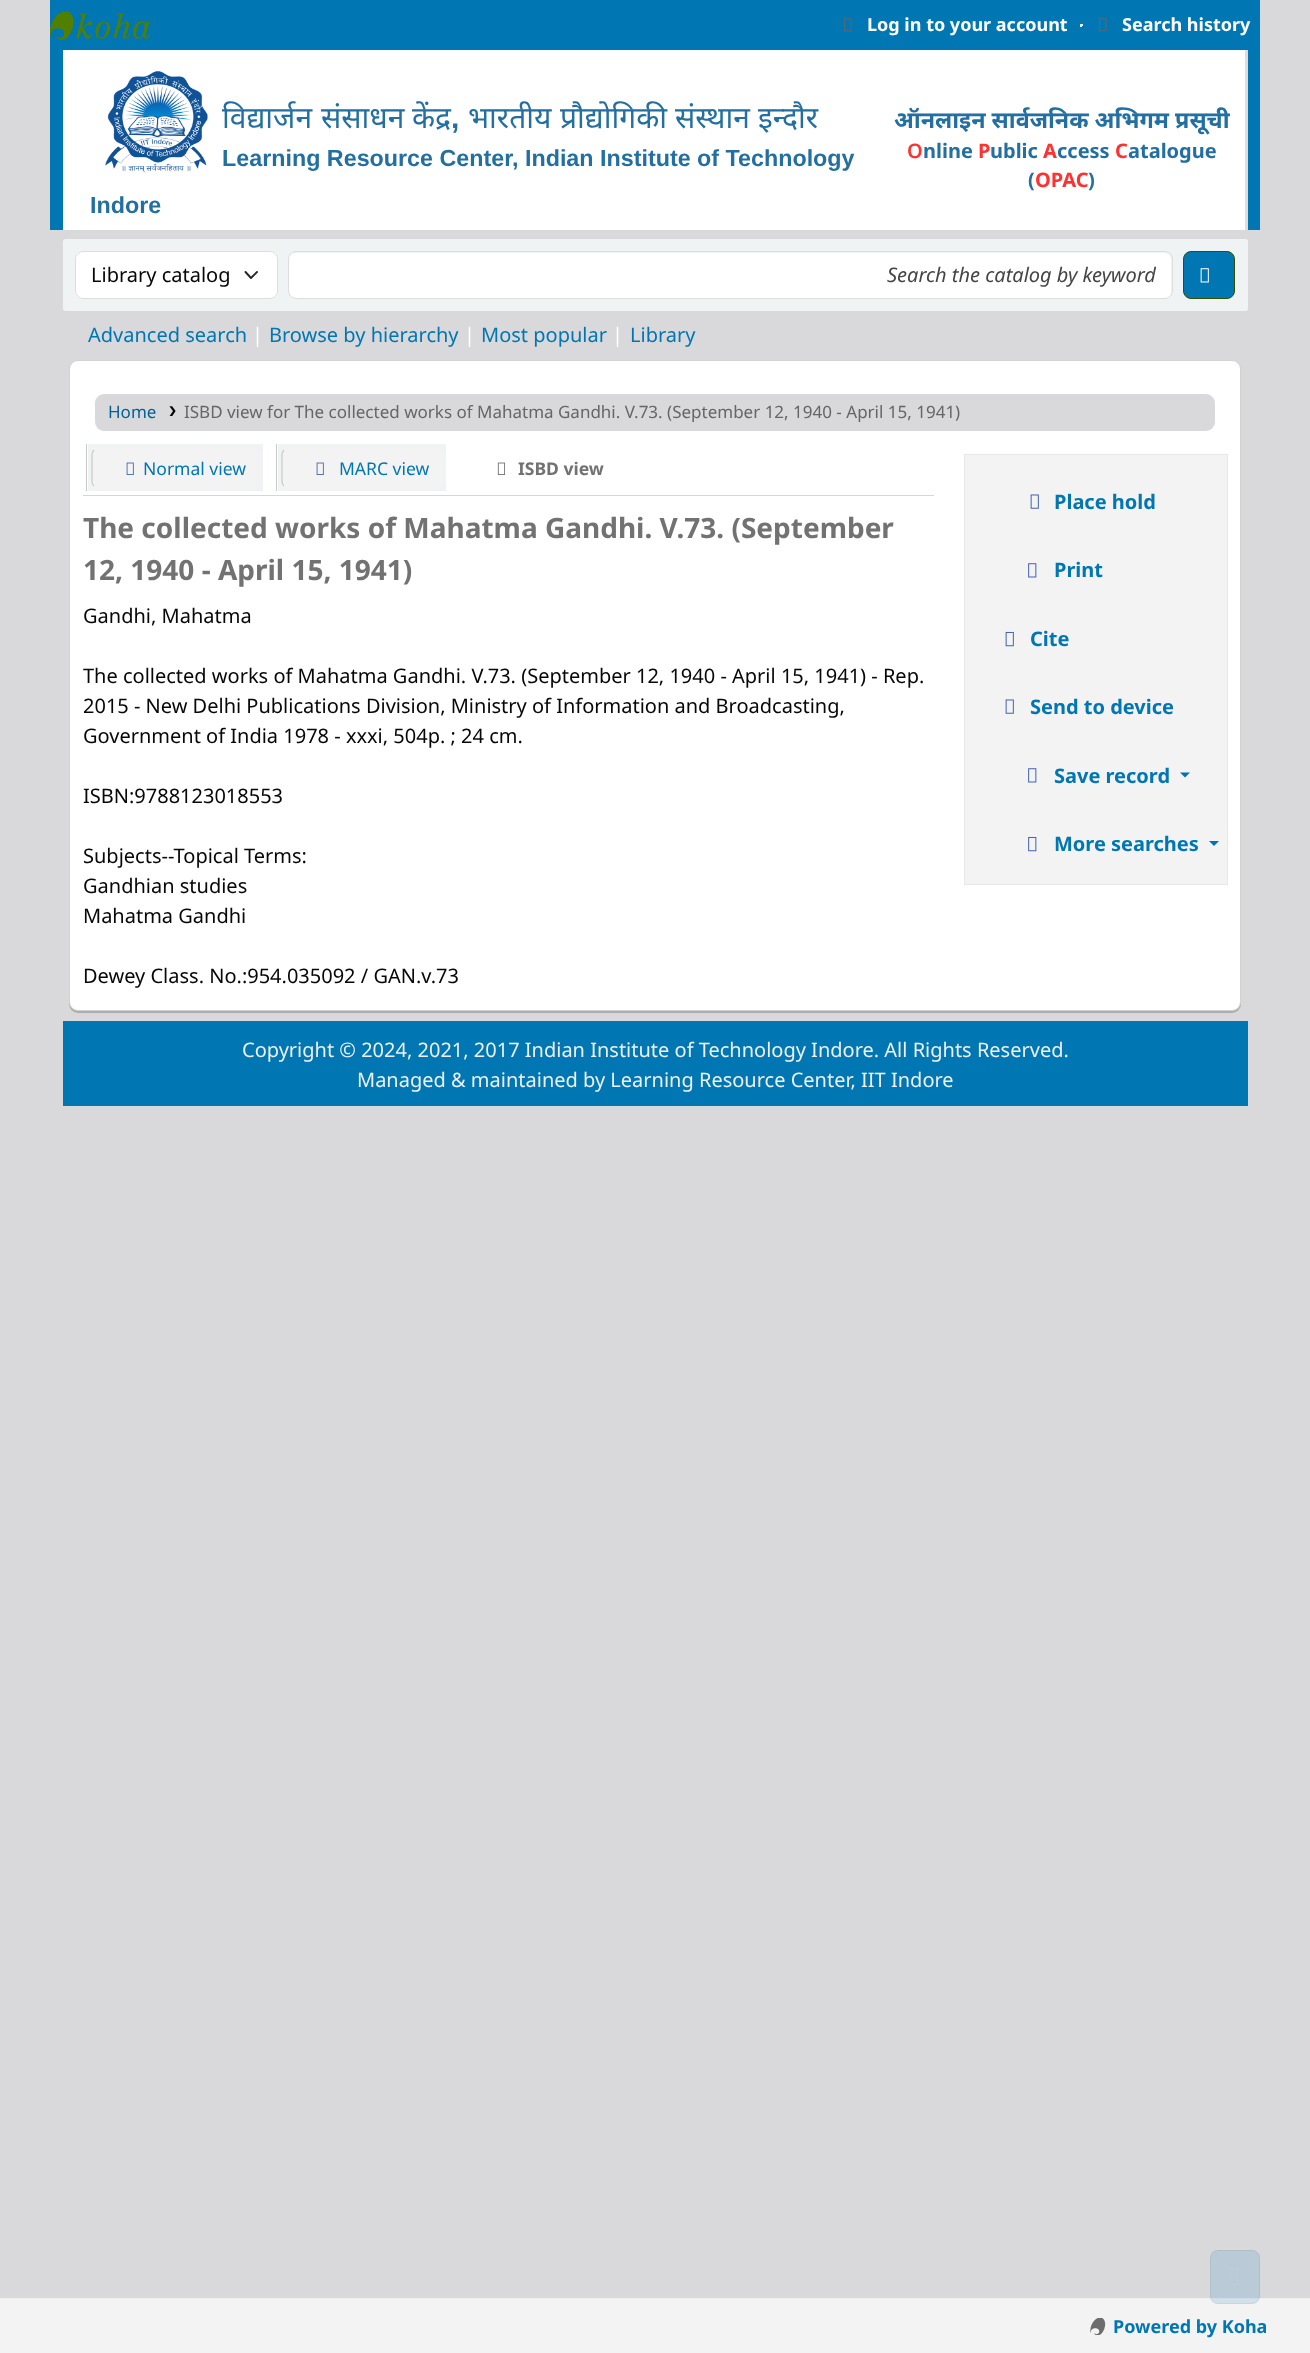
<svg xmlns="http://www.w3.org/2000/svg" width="1310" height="2353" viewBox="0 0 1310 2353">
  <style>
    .t1 { font: bold 18px Noto Sans; fill: #fff; }
    .t2 { font: 30px Noto Sans; fill: #236fa1; }
    .t3 { font: bold 30px Liberation Sans; fill: #236fa1; }
    .t4 { font: bold 23.3px Liberation Sans; fill: #236fa1; }
    .t5 { font: bold 23.3px Noto Sans; fill: #236fa1; }
    .t6 { font: 600 20px Noto Sans; fill: #ff3131; }
    .t7 { font: bold 20px Noto Sans; fill: #236fa1; }
    .t8 { font: bold 20px Noto Sans; fill: #ff3131; }
    .t9 { font: 20px Noto Sans; fill: #070707; }
    .t10 { font: italic 20px Noto Sans; fill: #454545; }
    .t11 { font: 20px Noto Sans; fill: #0076b2; }
    .t12 { font: 20px Noto Sans; fill: #fff; }
    .t13 { font: 17px Noto Sans; fill: #006394; }
    .t14 { font: 17px Noto Sans; fill: #666; }
    .t15 { font: 17.5px Noto Sans; fill: #0076b2; }
    .t16 { font: bold 17.5px Noto Sans; fill: #727272; }
    .t17 { font: bold 28px Noto Sans; fill: #727272; }
    .t18 { font: bold 20px Noto Sans; fill: #0076b2; }
    .t19 { font: 20px Noto Sans; fill: #ecf0f1; }
    .t20 { font: bold 18px Noto Sans; fill: #0076b2; }
  </style>
  <defs>
    <clipPath id="clip1"><rect x="304" y="261" width="852" height="28"/></clipPath>
  </defs>
  <rect width="100%" height="100%" fill="#d9d9dc"/>
  <rect x="50" y="0" width="1210" height="230" fill="#0076b2"/>
  <image x="50" y="11" width="100" height="29" href="images/1.png"/>
  <image x="844" y="18" width="8" height="14" href="images/2.png"/>
  <text x="867" y="31" class="t1">Log in to your account</text>
  <rect x="1080" y="24" width="3" height="1" fill="#eee"/>
  <rect x="1081" y="24" width="1" height="3" fill="#fcf9fc"/>
  <rect x="1080" y="25" width="3" height="1" fill="#eee"/>
  <rect x="1080" y="24" width="1" height="3" fill="#eee"/>
  <image x="1099" y="18" width="8" height="14" href="images/2.png"/>
  <text x="1122" y="31" class="t1">Search history</text>
  <rect x="1245" y="50" width="3" height="180" fill="#ddd"/>
  <rect x="63" y="50" width="1182" height="180" fill="#fff"/>
  <image x="105" y="71" width="103" height="102" href="images/3.png"/>
  <text x="222" y="128" class="t2">विद्यार्जन</text>
  <text x="321" y="128" class="t2">संसाधन</text>
  <text x="412" y="128" class="t2">केंद्र</text>
  <text x="451" y="128" class="t3">,</text>
  <text x="468" y="128" class="t2">भारतीय</text>
  <text x="560" y="128" class="t2">प्रौद्योगिकी</text>
  <text x="675" y="128" class="t2">संस्थान</text>
  <text x="758" y="128" class="t2">इन्दौर</text>
  <text x="222" y="166" class="t4">Learning Resource Center, Indian Institute of Technology</text>
  <text x="90" y="213" class="t4">Indore</text>
  <text x="894" y="128" class="t5">ऑनलाइन सार्वजनिक अभिगम प्रसूची</text>
  <text x="907" y="158" class="t6">O</text>
  <text x="923" y="158" class="t7">nline</text>
  <text x="978" y="158" class="t8">P</text>
  <text x="990" y="158" class="t7">ublic</text>
  <text x="1043" y="158" class="t8">A</text>
  <text x="1057" y="158" class="t7">ccess</text>
  <text x="1115" y="158" class="t8">C</text>
  <text x="1128" y="158" class="t7">atalogue</text>
  <text x="1028" y="187" class="t7">(</text>
  <text x="1035" y="187" class="t8">OPAC</text>
  <text x="1088" y="187" class="t7">)</text>
  <rect x="63" y="239" width="1185" height="72" rx="2.5" fill="#f0f3f3"/>
  <rect x="75" y="251" width="203" height="48" rx="8" fill="#fff"/>
  <path d="M245.5 272L251 278L257 272" fill="none" stroke="#252525" stroke-width="1.9" stroke-linecap="round" stroke-linejoin="round"/>
  <rect x="75.5" y="251.5" width="202" height="47" rx="7.5" fill="none" stroke="#ddd"/>
  <text x="91" y="282" class="t9">Library catalog</text>
  <rect x="289" y="253" width="882" height="45" rx="6" fill="#fff"/>
  <rect x="288.5" y="251.5" width="884" height="47" rx="7.5" fill="none" stroke="#ddd"/>
  <g clip-path="url(#clip1)">
    <text x="887" y="282" class="t10">Search the catalog by keyword</text>
  </g>
  <rect x="1183.5" y="251.5" width="51" height="47" rx="7.5" fill="#0076b2" stroke="#335000"/>
  <image x="1200" y="268" width="9" height="15" href="images/4.png"/>
  <text x="88" y="342" class="t11">Advanced search</text>
  <text x="252" y="342" class="t12">|</text>
  <text x="269" y="342" class="t11">Browse by hierarchy</text>
  <text x="464" y="342" class="t12">|</text>
  <text x="481" y="342" class="t11">Most popular</text>
  <text x="612" y="342" class="t12">|</text>
  <text x="630" y="342" class="t11">Library</text>
  <rect x="69" y="361" width="1172" height="652" rx="9" fill="#00000033" filter="blur(0.5px)"/>
  <rect x="69.5" y="360.5" width="1171" height="650" rx="8.5" fill="#fff" stroke="#d2d2cf"/>
  <rect x="95" y="394" width="1120" height="37" rx="9" fill="#d9d9dc"/>
  <text x="108" y="418" class="t13">Home</text>
  <image x="169" y="406" width="7" height="10" href="images/5.png"/>
  <text x="184" y="418" class="t14">ISBD view for The collected works of Mahatma Gandhi. V.73. (September 12, 1940 - April 15, 1941)</text>
  <rect x="83" y="495" width="851" height="1" fill="#d6d6d6"/>
  <rect x="88" y="444" width="175" height="47" fill="#f0f3f3"/>
  <rect x="86" y="444" width="1" height="47" fill="#c9c9c9"/>
  <rect x="91" y="448" width="168" height="41" rx="8" fill="#f3f3f3"/>
  <path d="M94 486C92.5 485 92 483 92 481V455C92 453 92.5 451.5 94 450" fill="none" stroke="#c9c9c9" stroke-width="1.2"/>
  <image x="126" y="462" width="8" height="13" href="images/6.png"/>
  <text x="143" y="475" class="t15">Normal view</text>
  <rect x="278" y="444" width="168" height="47" fill="#f0f3f3"/>
  <rect x="276" y="444" width="1" height="47" fill="#c9c9c9"/>
  <rect x="281" y="448" width="162" height="41" rx="8" fill="#f3f3f3"/>
  <path d="M284 486C282.5 485 282 483 282 481V455C282 453 282.5 451.5 284 450" fill="none" stroke="#c9c9c9" stroke-width="1.2"/>
  <image x="316" y="462" width="8" height="13" href="images/6.png"/>
  <text x="339" y="475" class="t15">MARC view</text>
  <image x="497" y="462" width="9" height="13" href="images/7.png"/>
  <text x="518" y="475" class="t16">ISBD view</text>
  <text x="83" y="538" class="t17">The collected works of Mahatma Gandhi. V.73. (September</text>
  <text x="83" y="580" class="t17">12, 1940 - April 15, 1941)</text>
  <text x="83" y="623" class="t9">Gandhi, Mahatma</text>
  <text x="83" y="683" class="t9">The collected works of Mahatma Gandhi. V.73. (September 12, 1940 - April 15, 1941) - Rep.</text>
  <text x="83" y="713" class="t9">2015 - New Delhi Publications Division, Ministry of Information and Broadcasting,</text>
  <text x="83" y="743" class="t9">Government of India 1978 - xxxi, 504p. ; 24 cm.</text>
  <text x="83" y="803" class="t9">ISBN:9788123018553</text>
  <text x="83" y="863" class="t9">Subjects--Topical Terms:</text>
  <text x="83" y="893" class="t9">Gandhian studies</text>
  <text x="83" y="923" class="t9">Mahatma Gandhi</text>
  <text x="83" y="983" class="t9">Dewey Class. No.:954.035092 / GAN.v.73</text>
  <rect x="964.5" y="454.5" width="263" height="430" fill="#f3f3f3" stroke="#e8e8e8"/>
  <image x="1030" y="494" width="9" height="15" href="images/8.png"/>
  <text x="1054" y="509" class="t18">Place hold</text>
  <image x="1028" y="563" width="9" height="15" href="images/9.png"/>
  <text x="1054" y="577" class="t18">Print</text>
  <image x="1005" y="631" width="9" height="16" href="images/10.png"/>
  <text x="1030" y="646" class="t18">Cite</text>
  <image x="1005" y="699" width="9" height="15" href="images/8.png"/>
  <text x="1030" y="714" class="t18">Send to device</text>
  <image x="1028" y="768" width="9" height="15" href="images/9.png"/>
  <text x="1054" y="783" class="t18">Save record</text>
  <path d="M1180 772.5H1190L1185 777.5Z" fill="#0074ad"/>
  <image x="1028" y="836" width="9" height="16" href="images/11.png"/>
  <text x="1054" y="851" class="t18">More searches</text>
  <path d="M1209 841H1219L1214 846Z" fill="#0074ad"/>
  <rect x="63" y="1021" width="1185" height="85" fill="#0076b2"/>
  <text x="242" y="1057" class="t19">Copyright © 2024, 2021, 2017 Indian Institute of Technology Indore. All Rights Reserved.</text>
  <text x="357" y="1087" class="t19">Managed &amp; maintained by Learning Resource Center, IIT Indore</text>
  <rect x="0" y="2299" width="1310" height="54" fill="#f3f3f3"/>
  <rect x="0" y="2298" width="1310" height="1" fill="#eee"/>
  <rect x="1210" y="2250" width="50" height="54" rx="8" fill="#0076b212"/>
  <rect x="1210" y="2250" width="50" height="54" rx="8" fill="#0076b212"/>
  <rect x="1210.5" y="2250.5" width="49" height="53" rx="7.5" fill="none" stroke="#33500012"/>
  <image x="1229" y="2268" width="9" height="17" href="images/12.png"/>
  <image x="1090" y="2318" width="16" height="17" href="images/13.png"/>
  <text x="1113" y="2333" class="t20">Powered by Koha</text>
</svg>
